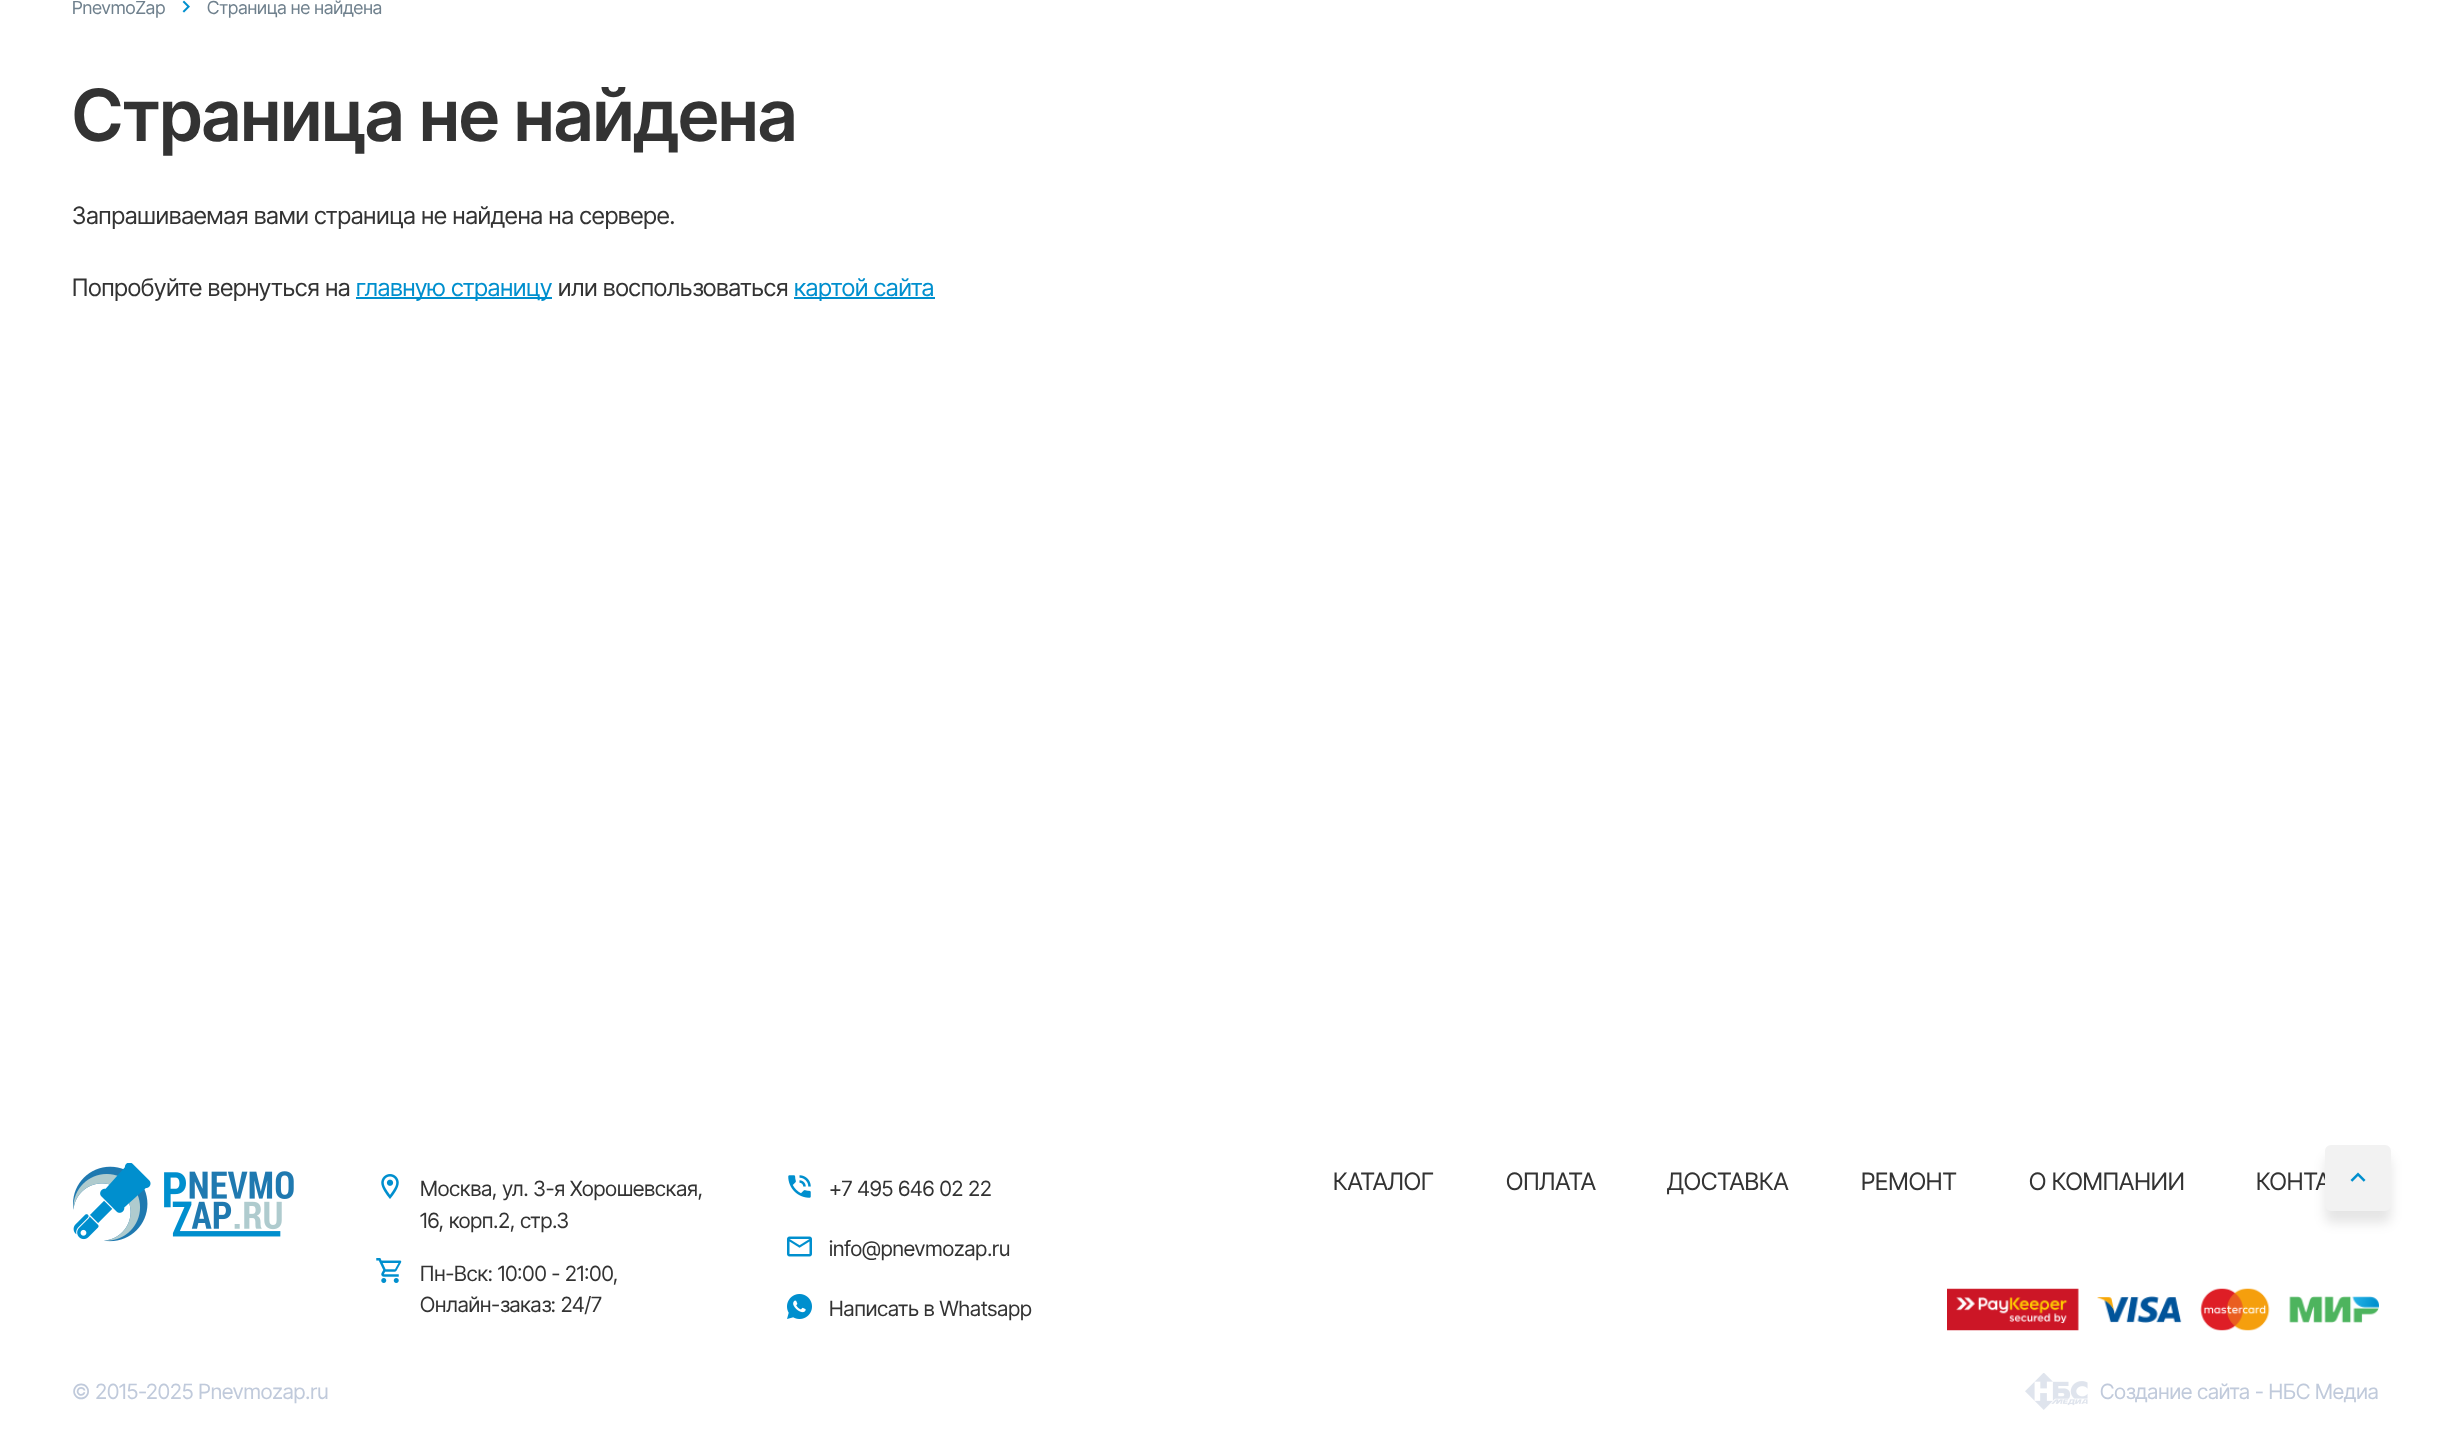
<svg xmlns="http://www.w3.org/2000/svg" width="2451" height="1450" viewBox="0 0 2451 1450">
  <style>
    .t1 { font: 18px Inter Tight; fill: #6f808d; }
    .t2 { font: 600 72px Inter Tight; fill: #333; }
    .t3 { font: 24px Inter Tight; fill: #333; }
    .t4 { font: 24px Inter Tight; fill: #008fce; }
    .t5 { font: 21px Inter Tight; fill: #333; }
    .t6 { font: 21px Inter Tight; fill: #c0cadb; }
  </style>
  <rect width="100%" height="100%" fill="#fff"/>
  <text x="72" y="14" class="t1">PnevmoZap</text>
  <image x="182" y="0" width="8" height="13" href="images/1.png"/>
  <text x="207" y="14" class="t1">Страница не найдена</text>
  <text x="72" y="141" class="t2">Страница не найдена</text>
  <text x="72" y="224" class="t3">Запрашиваемая вами страница не найдена на сервере.</text>
  <text x="72" y="296" class="t3">Попробуйте вернуться на</text>
  <rect x="356" y="297" width="196" height="2" fill="#008fce"/>
  <text x="356" y="296" class="t4">главную страницу</text>
  <text x="558" y="296" class="t3">или воспользоваться</text>
  <rect x="794" y="297" width="141" height="2" fill="#008fce"/>
  <text x="794" y="296" class="t4">картой сайта</text>
  <rect x="2325" y="1157" width="66" height="66" rx="6" fill="#0000001a" filter="blur(6px)"/>
  <text x="2256" y="1190" class="t3">КОНТА</text>
  <rect x="2326.5" y="1146.5" width="63" height="63" rx="4.5" fill="#f2f2f2" stroke="#f2f2f2" stroke-width="3"/>
  <image x="2350" y="1172" width="16" height="10" href="images/2.png"/>
  <image x="73" y="1163" width="221" height="79" href="images/3.png"/>
  <image x="381" y="1174" width="18" height="25" href="images/4.png"/>
  <text x="420" y="1196" class="t5">Москва, ул. 3-я Хорошевская,</text>
  <text x="420" y="1228" class="t5">16, корп.2, стр.3</text>
  <image x="376" y="1258" width="26" height="25" href="images/5.png"/>
  <text x="420" y="1281" class="t5">Пн-Вск: 10:00 - 21:00,</text>
  <text x="420" y="1312" class="t5">Онлайн-заказ: 24/7</text>
  <image x="788" y="1175" width="23" height="23" href="images/6.png"/>
  <text x="829" y="1196" class="t5">+7 495 646 02 22</text>
  <image x="787" y="1236" width="25" height="21" href="images/7.png"/>
  <text x="829" y="1256" class="t5">info@pnevmozap.ru</text>
  <image x="787" y="1294" width="25" height="25" href="images/8.png"/>
  <text x="829" y="1316" class="t5">Написать в Whatsapp</text>
  <text x="1333" y="1190" class="t3">КАТАЛОГ</text>
  <text x="1506" y="1190" class="t3">ОПЛАТА</text>
  <text x="1667" y="1190" class="t3">ДОСТАВКА</text>
  <text x="1861" y="1190" class="t3">РЕМОНТ</text>
  <text x="2029" y="1190" class="t3">О КОМПАНИИ</text>
  <image x="1947" y="1288" width="432" height="43" href="images/9.png"/>
  <text x="72" y="1399" class="t6">© 2015-2025 Pnevmozap.ru</text>
  <image x="2025" y="1373" width="63" height="37" href="images/10.png"/>
  <text x="2100" y="1399" class="t6">Создание сайта - НБС Медиа</text>
</svg>
